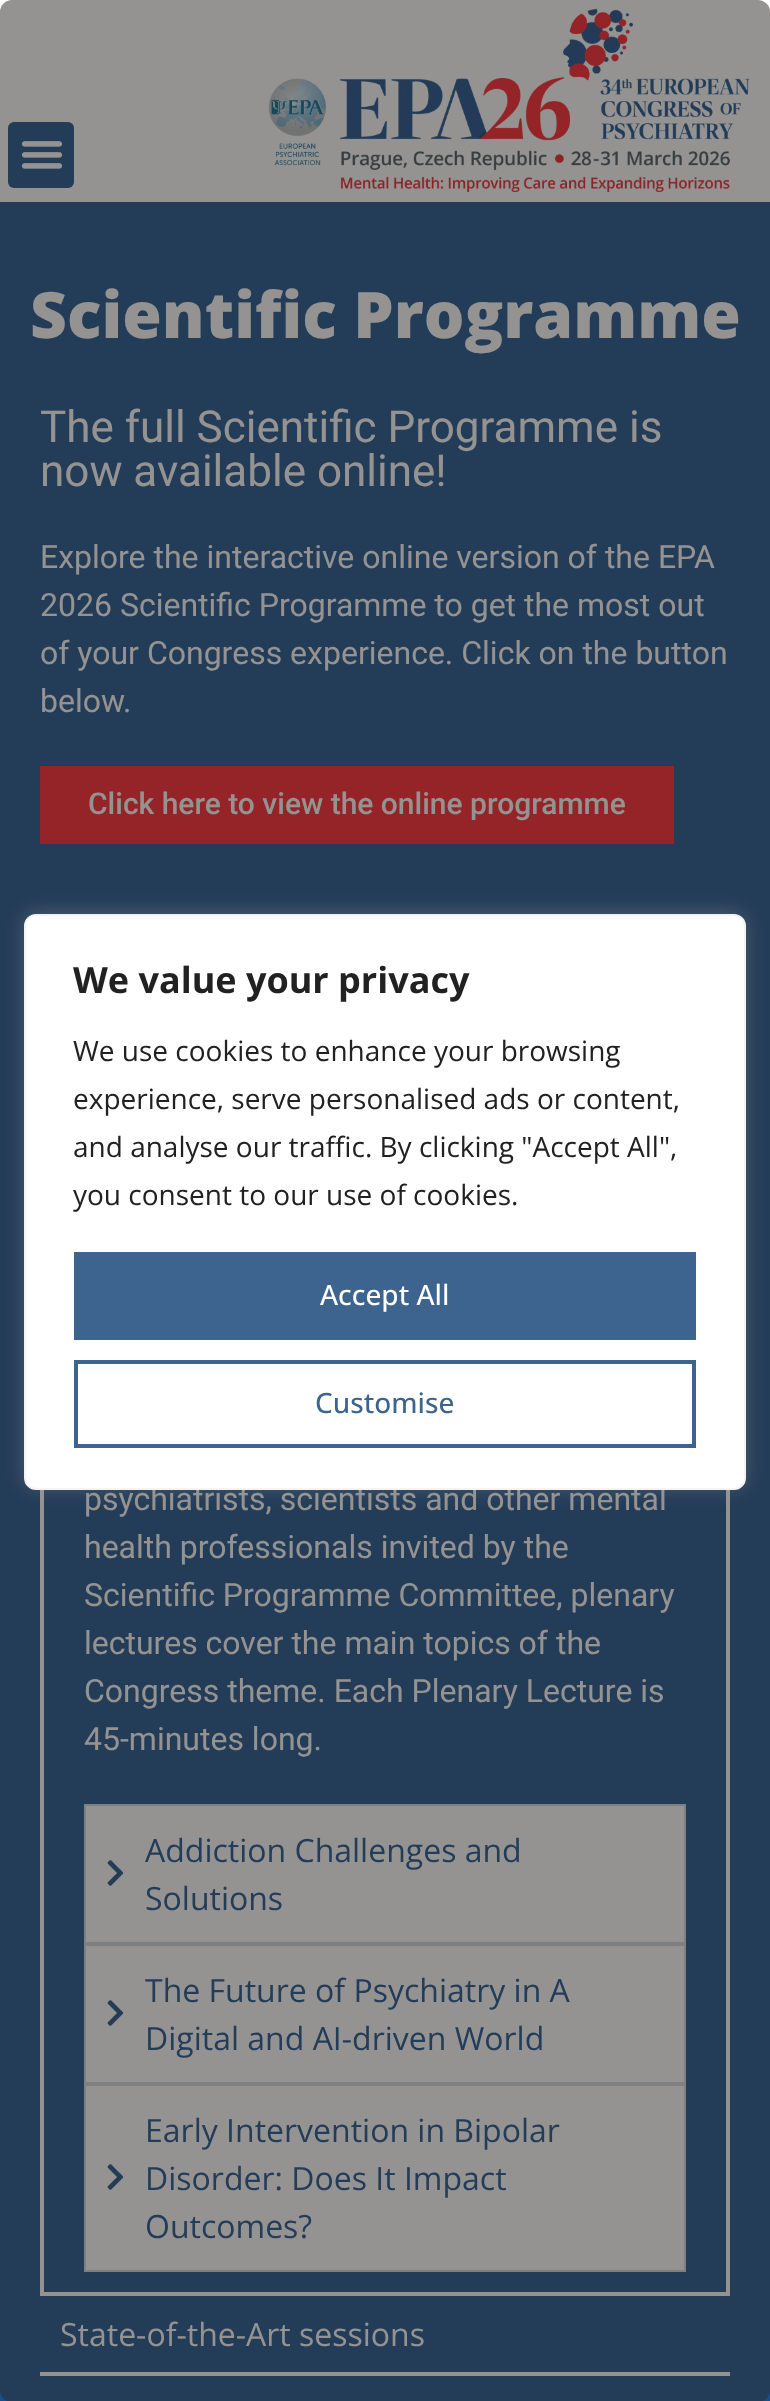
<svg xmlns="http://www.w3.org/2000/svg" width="770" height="2401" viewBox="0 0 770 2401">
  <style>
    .t1 { font: 800 64px Open Sans; fill: #fff; }
    .t2 { font: 44px Roboto; fill: #fff; }
    .t3 { font: 32px Roboto; fill: #fff; }
    .t4 { font: 500 30px Roboto; fill: #fff; }
    .t5 { font: 32px Open Sans; fill: #1a4e89; }
    .t6 { font: 32px Open Sans; fill: #fff; }
    .t7 { font: bold 36px Open Sans; fill: #212121; }
    .t8 { font: 28px Open Sans; fill: #212121; }
    .t9 { font: 500 28px Open Sans; fill: #fff; }
    .t10 { font: 500 28px Open Sans; fill: #3d638f; }
  </style>
  <rect width="100%" height="100%" fill="#fff"/>
  <rect x="8" y="122" width="66" height="66" rx="6" fill="#1a4e89"/>
  <image x="21" y="141" width="42" height="28" href="images/1.png"/>
  <image x="268" y="8" width="482" height="184" href="images/2.png"/>
  <rect x="0" y="202" width="770" height="2199" fill="#1a4e89"/>
  <text x="30" y="338" class="t1">Scientific Programme</text>
  <text x="40" y="442" class="t2">The full Scientific Programme is</text>
  <text x="40" y="486" class="t2">now available online!</text>
  <text x="40" y="568" class="t3">Explore the interactive online version of the EPA</text>
  <text x="40" y="616" class="t3">2026 Scientific Programme to get the most out</text>
  <text x="40" y="664" class="t3">of your Congress experience. Click on the button</text>
  <text x="40" y="712" class="t3">below.</text>
  <rect x="40" y="766" width="634" height="78" fill="#ff1d25"/>
  <text x="88" y="814" class="t4">Click here to view the online programme</text>
  <rect x="42" y="1310" width="686" height="984" fill="none" stroke="#fff" stroke-width="4"/>
  <text x="84" y="1510" class="t3">psychiatrists, scientists and other mental</text>
  <text x="84" y="1558" class="t3">health professionals invited by the</text>
  <text x="84" y="1606" class="t3">Scientific Programme Committee, plenary</text>
  <text x="84" y="1654" class="t3">lectures cover the main topics of the</text>
  <text x="84" y="1702" class="t3">Congress theme. Each Plenary Lecture is</text>
  <text x="84" y="1750" class="t3">45-minutes long.</text>
  <rect x="85" y="1805" width="600" height="138" fill="#fff" stroke="#d5d8dc" stroke-width="2"/>
  <image x="107" y="1860" width="17" height="26" href="images/3.png"/>
  <text x="145" y="1862" class="t5">Addiction Challenges and</text>
  <text x="145" y="1910" class="t5">Solutions</text>
  <rect x="85" y="1945" width="600" height="138" fill="#fff" stroke="#d5d8dc" stroke-width="2"/>
  <image x="107" y="2000" width="17" height="26" href="images/3.png"/>
  <text x="145" y="2002" class="t5">The Future of Psychiatry in A</text>
  <text x="145" y="2050" class="t5">Digital and AI-driven World</text>
  <rect x="85" y="2085" width="600" height="186" fill="#fff" stroke="#d5d8dc" stroke-width="2"/>
  <image x="107" y="2164" width="17" height="26" href="images/3.png"/>
  <text x="145" y="2142" class="t5">Early Intervention in Bipolar</text>
  <text x="145" y="2190" class="t5">Disorder: Does It Impact</text>
  <text x="145" y="2238" class="t5">Outcomes?</text>
  <rect x="40" y="2372" width="690" height="4" fill="#fff"/>
  <text x="60" y="2346" class="t6">State-of-the-Art sessions</text>
  <rect x="0" y="0" width="770" height="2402" rx="12" fill="#2d2c2a82"/>
  <rect x="24" y="912" width="722" height="576" rx="12" fill="#acabab4d" filter="blur(10px)"/>
  <rect x="25" y="915" width="720" height="574" rx="11" fill="#fff" stroke="#f4f4f4" stroke-width="2"/>
  <text x="73" y="993" class="t7">We value your privacy</text>
  <text x="73" y="1061" class="t8">We use cookies to enhance your browsing</text>
  <text x="73" y="1109" class="t8">experience, serve personalised ads or content,</text>
  <text x="73" y="1157" class="t8">and analyse our traffic. By clicking "Accept All",</text>
  <text x="73" y="1205" class="t8">you consent to our use of cookies.</text>
  <rect x="74" y="1252" width="622" height="88" fill="#3d638f"/>
  <text x="320" y="1305" class="t9">Accept All</text>
  <rect x="76" y="1362" width="618" height="84" fill="none" stroke="#3d638f" stroke-width="4"/>
  <text x="315" y="1413" class="t10">Customise</text>
</svg>
